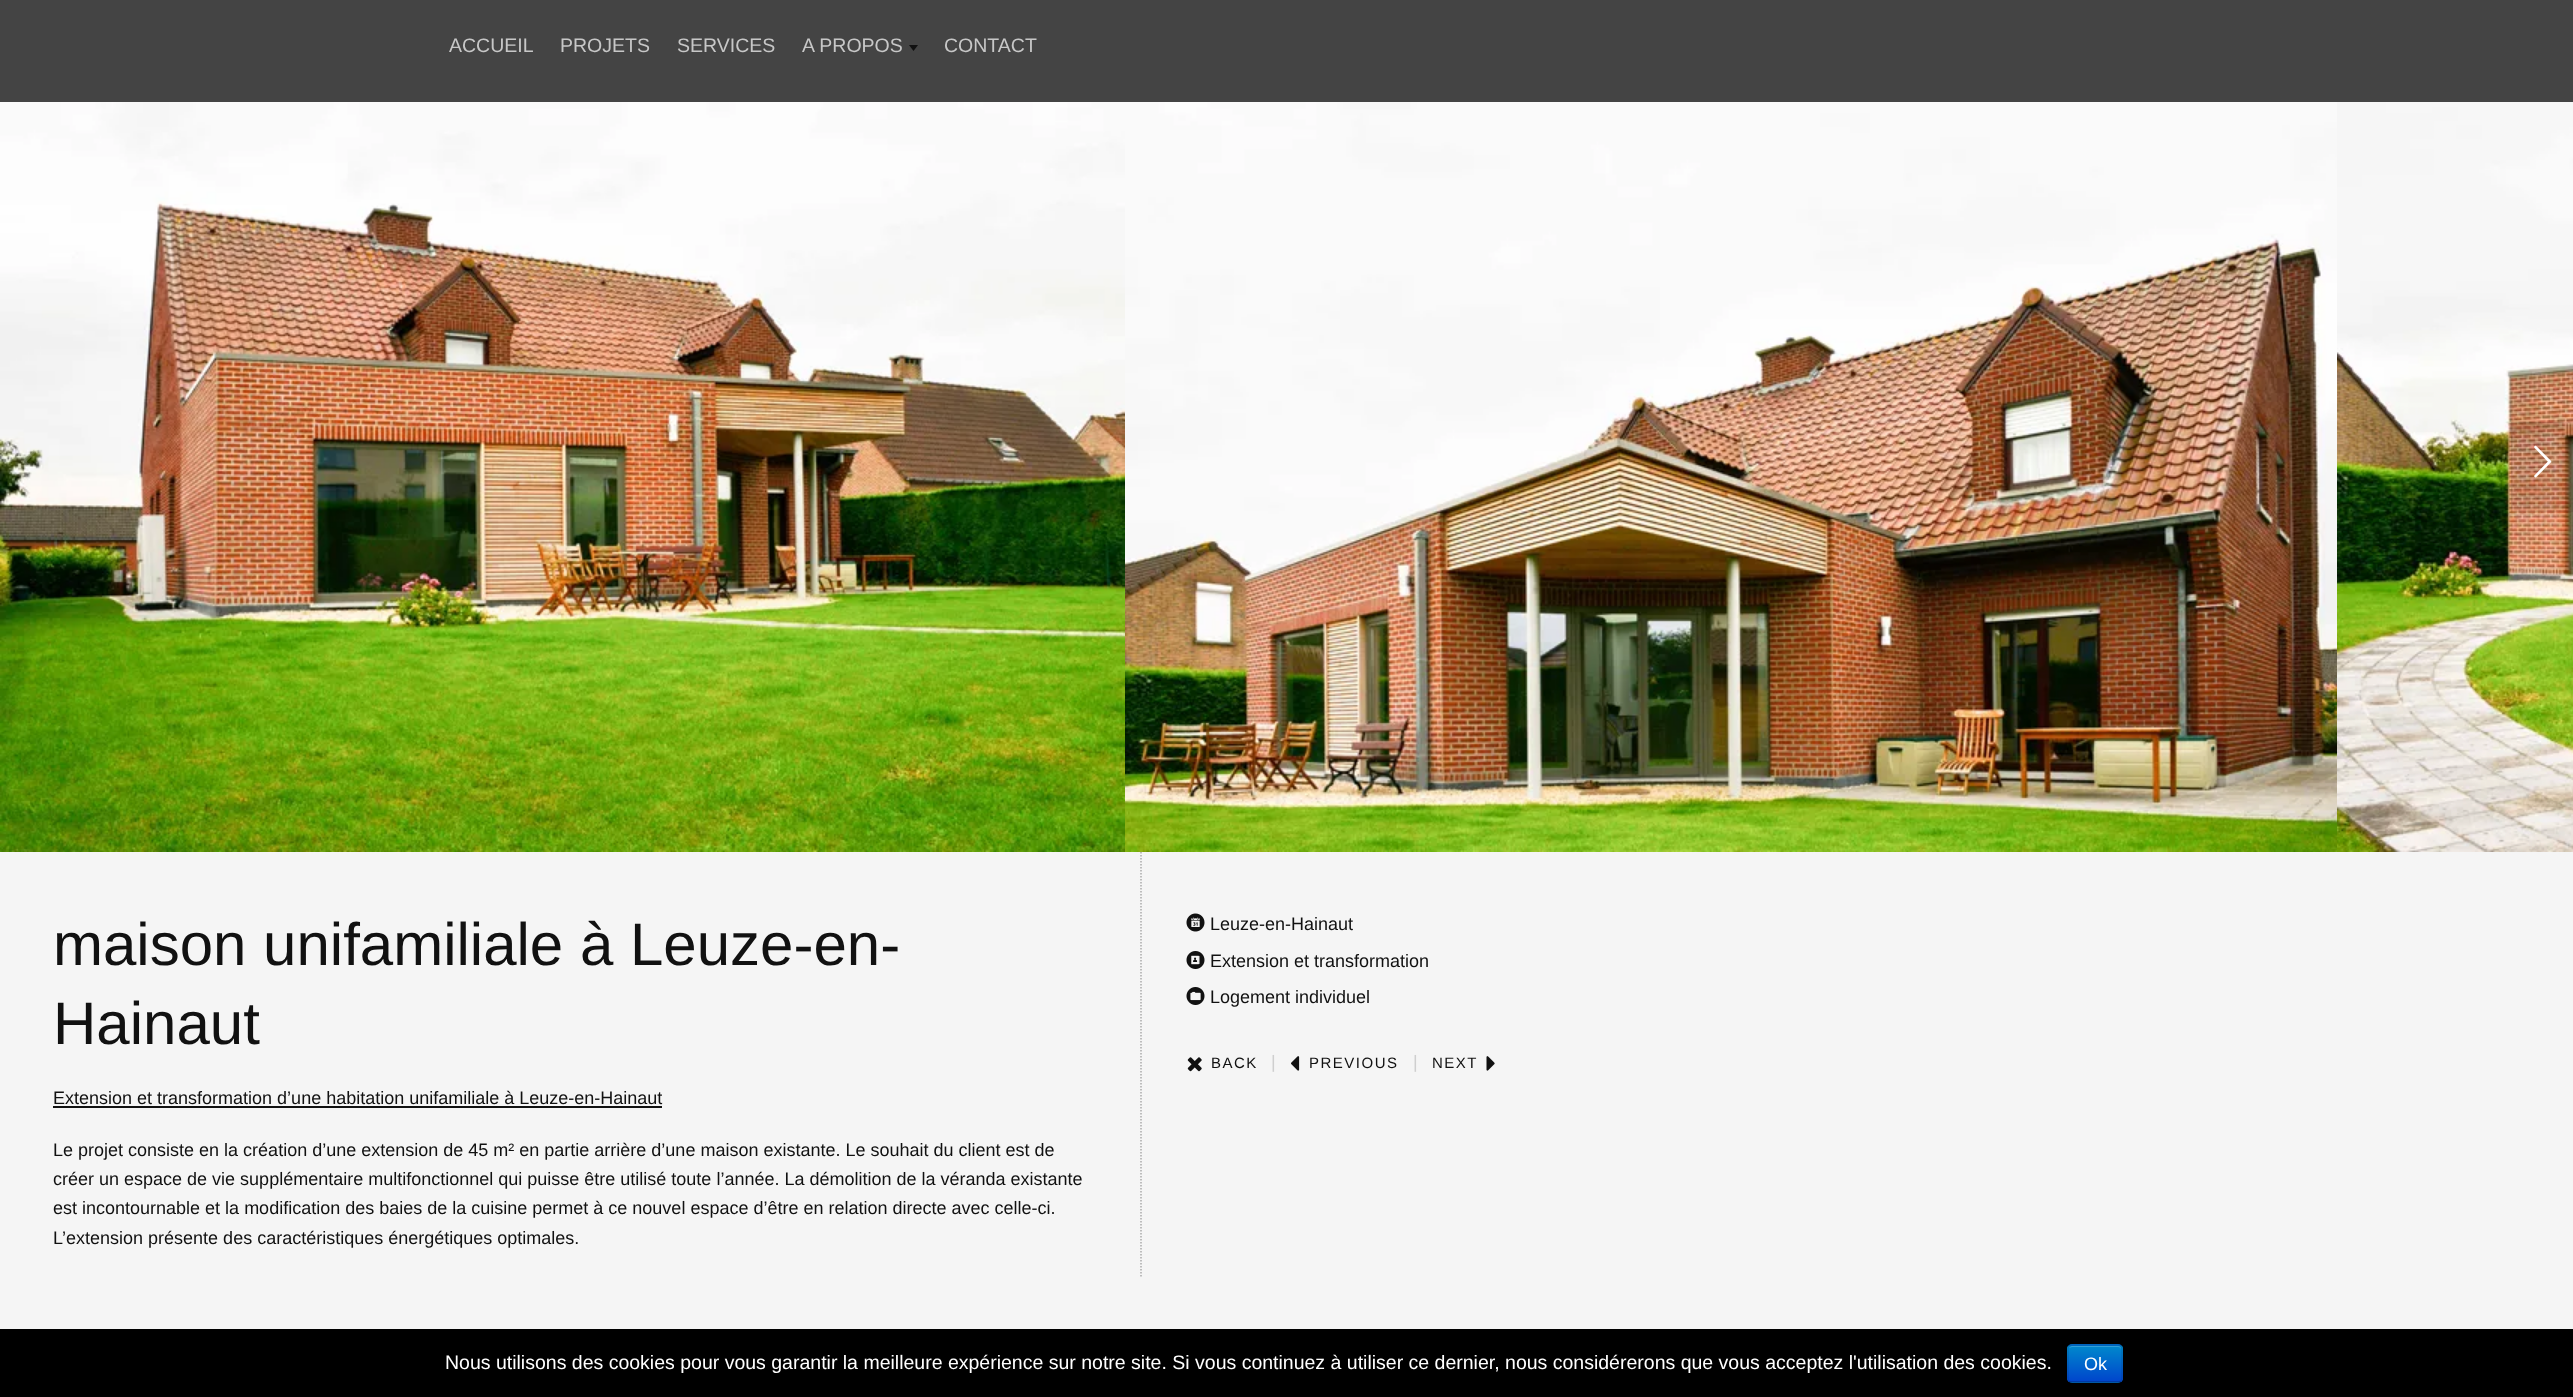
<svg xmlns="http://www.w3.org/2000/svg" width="2573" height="1397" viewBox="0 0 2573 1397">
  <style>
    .t1 { font: 19.5px Liberation Sans; fill: #c7c7c7; }
    .t2 { font: 60px Liberation Sans; fill: #111; }
    .t3 { font: 18px Liberation Sans; fill: #111; }
    .t4 { font: 15px Liberation Sans; letter-spacing: 1.5px; fill: #111; }
    .t5 { font: 18px Liberation Sans; fill: #cfcfcf; }
    .t6 { font: 19.5px Liberation Sans; fill: #fff; }
    .t7 { font: 18px Liberation Sans; fill: #fff; }
  </style>
  <defs>
    <clipPath id="clip1"><rect x="2067" y="1344" width="56" height="39" rx="5"/></clipPath>
    <linearGradient id="g1" gradientUnits="userSpaceOnUse" x1="2095" y1="1346" x2="2095" y2="1382"><stop offset="0" stop-color="#08c"/><stop offset="1" stop-color="#04c"/></linearGradient>
  </defs>
  <rect width="100%" height="100%" fill="#f5f5f5"/>
  <rect x="0" y="0" width="2573" height="102" fill="#444"/>
  <text x="449" y="52" class="t1">ACCUEIL</text>
  <text x="560" y="52" class="t1">PROJETS</text>
  <text x="677" y="52" class="t1">SERVICES</text>
  <text x="802" y="52" class="t1">A PROPOS</text>
  <path d="M909 45H918L913.5 51Z" fill="#111"/>
  <text x="944" y="52" class="t1">CONTACT</text>
  <image x="0" y="102" width="1125" height="750" href="images/1.png"/>
  <image x="1125" y="102" width="1212" height="750" href="images/2.png"/>
  <image x="2337" y="102" width="236" height="750" href="images/3.png"/>
  <image x="23" y="449" width="15" height="18" href="images/4.png"/>
  <rect x="2511" y="422" width="62" height="90" fill="#0000001a"/>
  <image x="2534" y="445" width="18" height="33" href="images/5.png"/>
  <path d="M1141 852V1276.5" fill="none" stroke="#ababab" stroke-width="1.5" stroke-dasharray="1.5 1.5"/>
  <text x="53" y="965" class="t2">maison unifamiliale à Leuze-en-</text>
  <text x="53" y="1044" class="t2">Hainaut</text>
  <text x="53" y="1104" class="t3">Extension et transformation d’une habitation unifamiliale à Leuze-en-Hainaut</text>
  <rect x="53" y="1106" width="609" height="2" fill="#111"/>
  <text x="53" y="1156" class="t3">Le projet consiste en la création d’une extension de 45 m² en partie arrière d’une maison existante. Le souhait du client est de</text>
  <text x="53" y="1185" class="t3">créer un espace de vie supplémentaire multifonctionnel qui puisse être utilisé toute l’année. La démolition de la véranda existante</text>
  <text x="53" y="1214" class="t3">est incontournable et la modification des baies de la cuisine permet à ce nouvel espace d’être en relation directe avec celle-ci.</text>
  <text x="53" y="1244" class="t3">L’extension présente des caractéristiques énergétiques optimales.</text>
  <image x="1186" y="913" width="19" height="19" href="images/6.png"/>
  <text x="1210" y="930" class="t3">Leuze-en-Hainaut</text>
  <image x="1186" y="951" width="19" height="18" href="images/7.png"/>
  <text x="1210" y="967" class="t3">Extension et transformation</text>
  <image x="1186" y="987" width="19" height="18" href="images/8.png"/>
  <text x="1210" y="1003" class="t3">Logement individuel</text>
  <image x="1187" y="1057" width="15" height="15" href="images/9.png"/>
  <text x="1211" y="1068" class="t4">BACK</text>
  <text x="1271" y="1068" class="t5">|</text>
  <image x="1291" y="1056" width="9" height="15" href="images/10.png"/>
  <text x="1309" y="1068" class="t4">PREVIOUS</text>
  <text x="1413" y="1068" class="t5">|</text>
  <text x="1432" y="1068" class="t4">NEXT</text>
  <image x="1486" y="1056" width="9" height="15" href="images/11.png"/>
  <rect x="0" y="1329" width="2573" height="68" fill="#000"/>
  <text x="445" y="1369" class="t6">Nous utilisons des cookies pour vous garantir la meilleure expérience sur notre site. Si vous continuez à utiliser ce dernier, nous considérerons que vous acceptez l'utilisation des cookies.</text>
  <rect x="2067" y="1344" width="56" height="39" rx="5" fill="#006dcc"/>
  <g clip-path="url(#clip1)">
    <rect x="2067" y="1346" width="56" height="36" fill="url(#g1)"/>
  </g>
  <path d="M2072 1347H2118C2120 1347 2121 1348 2121 1350V1349C2121 1347 2120 1346 2118 1346H2072C2071 1346 2070 1347 2069 1348Z" fill="#339fd6"/>
  <path d="M2120.5 1381C2120 1382 2119 1382 2118 1382H2071.5C2070.5 1382 2069.5 1382 2069 1381" fill="none" stroke="#00000040" stroke-width="1.5"/>
  <path d="M2069 1381C2068 1380.5 2068 1379.5 2068 1378.5V1348.5C2068 1347.5 2068 1346.5 2069 1346C2069.5 1345 2070.5 1345 2071.5 1345H2118C2119 1345 2120 1345 2120.5 1346C2121.5 1346.5 2122 1347.5 2122 1348.5V1378.5C2122 1379.5 2121.5 1380.5 2120.5 1381" fill="none" stroke="#0000001a" stroke-width="1.5"/>
  <text x="2084" y="1370" class="t7">Ok</text>
</svg>
